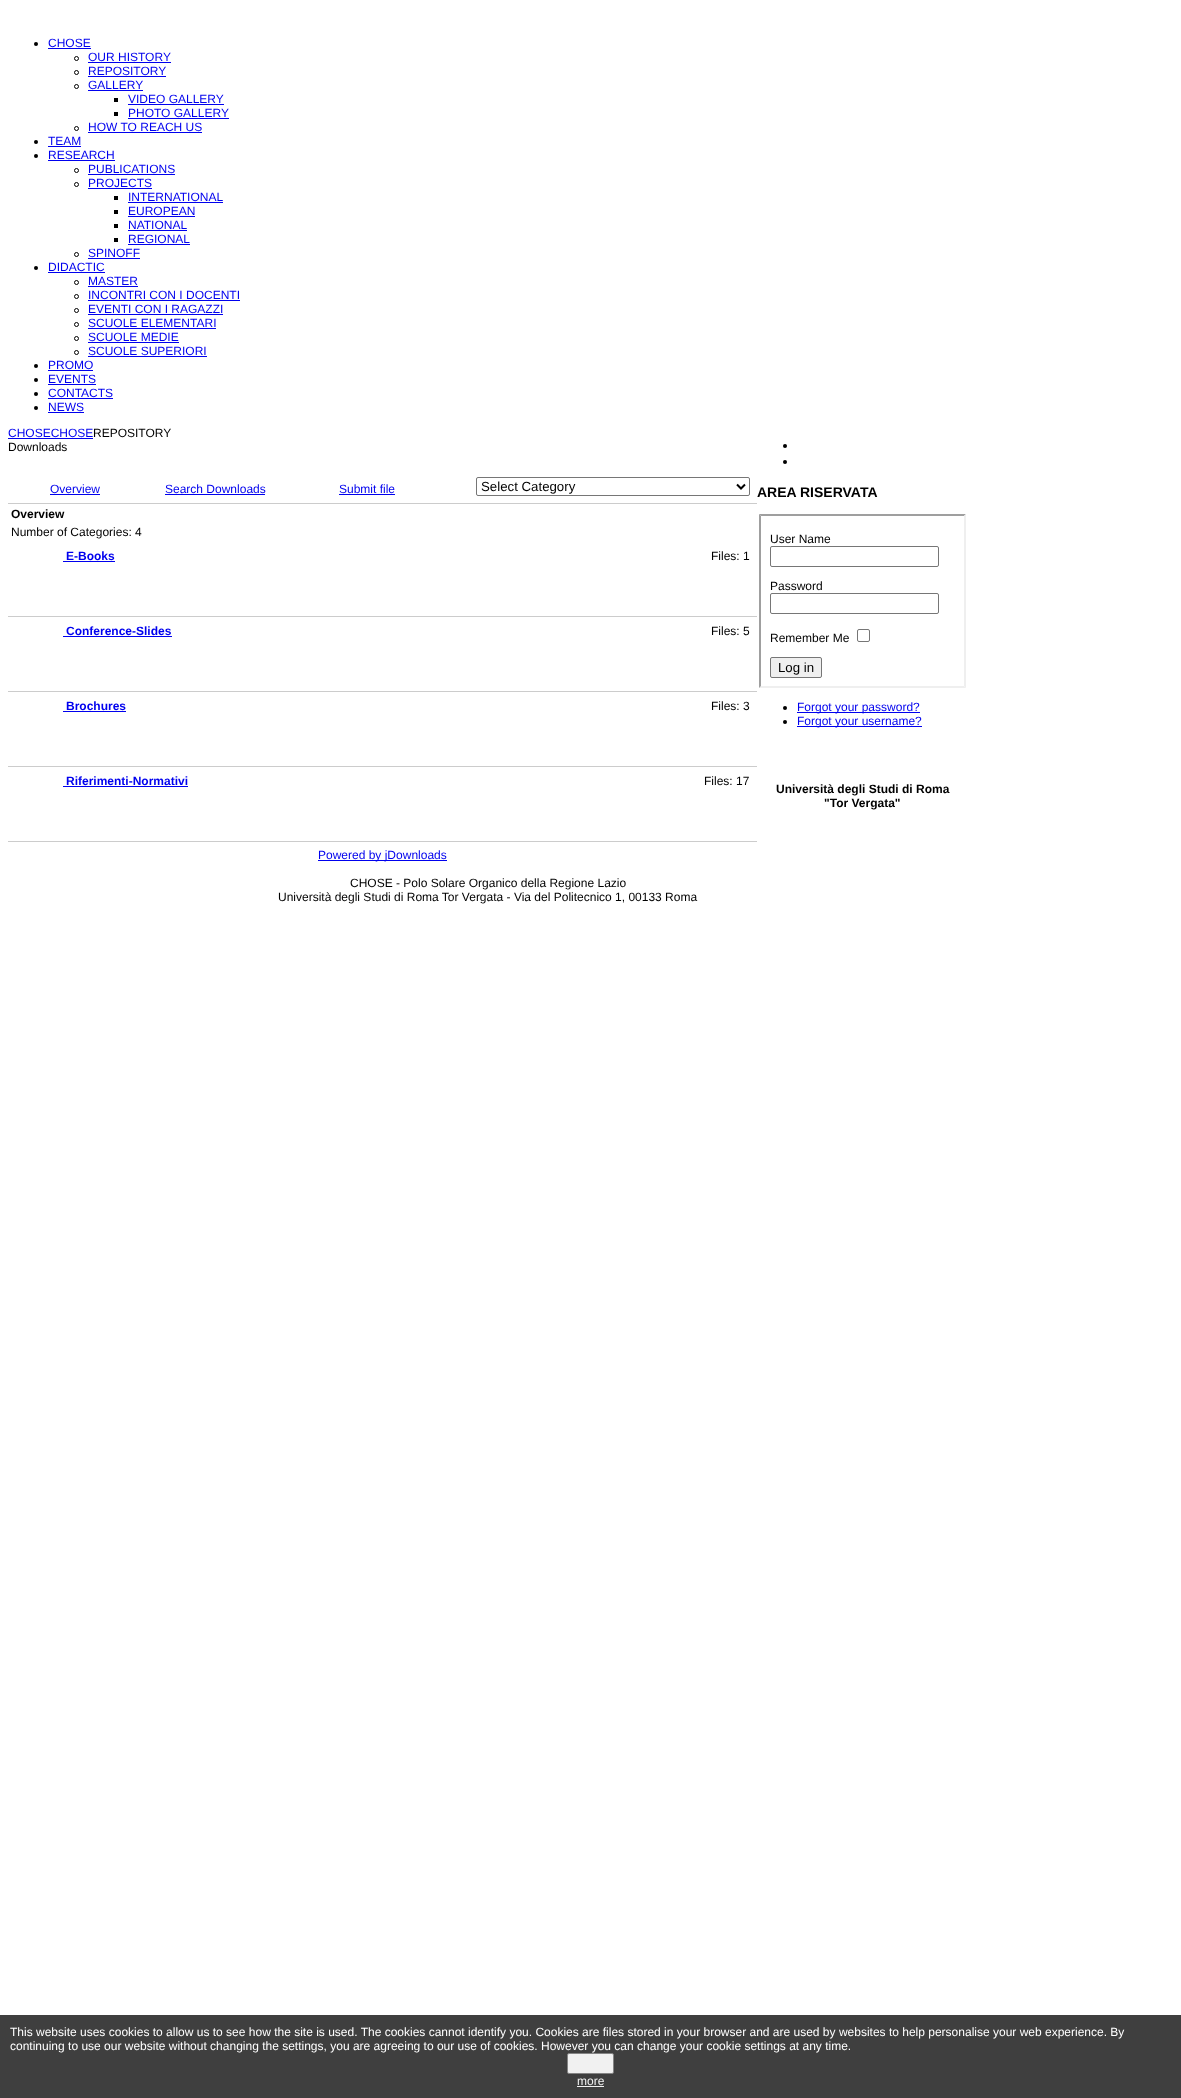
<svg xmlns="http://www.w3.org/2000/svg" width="1181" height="2098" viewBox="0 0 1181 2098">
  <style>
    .t1 { font: 12px Liberation Sans; fill: #00e; }
    .t2 { font: 12px Liberation Sans; fill: #000; }
    .t3 { font: 13.25px Liberation Sans; fill: #000; }
    .t4 { font: bold 12px Liberation Sans; fill: #000; }
    .t5 { font: bold 12px Liberation Sans; fill: #00e; }
    .t6 { font: bold 14px Liberation Sans; fill: #000; }
    .t7 { font: 12px Liberation Sans; fill: #fff; }
    .t8 { font: 12px Liberation Sans; fill: #f0f0f0; }
  </style>
  <rect width="100%" height="100%" fill="#fff"/>
  <circle cx="36" cy="44" r="2" fill="#000"/>
  <text x="48" y="47" class="t1">CHOSE</text>
  <rect x="48" y="48" width="43" height="1" fill="#00e"/>
  <circle cx="76.5" cy="58.5" r="2" fill="none" stroke="#000"/>
  <text x="88" y="61" class="t1">OUR HISTORY</text>
  <rect x="88" y="62" width="83" height="1" fill="#00e"/>
  <circle cx="76.5" cy="72.5" r="2" fill="none" stroke="#000"/>
  <text x="88" y="75" class="t1">REPOSITORY</text>
  <rect x="88" y="76" width="78" height="1" fill="#00e"/>
  <circle cx="76.5" cy="86.5" r="2" fill="none" stroke="#000"/>
  <text x="88" y="89" class="t1">GALLERY</text>
  <rect x="88" y="90" width="55" height="1" fill="#00e"/>
  <rect x="114" y="98" width="4" height="4" fill="#000"/>
  <text x="128" y="103" class="t1">VIDEO GALLERY</text>
  <rect x="128" y="104" width="96" height="1" fill="#00e"/>
  <rect x="114" y="112" width="4" height="4" fill="#000"/>
  <text x="128" y="117" class="t1">PHOTO GALLERY</text>
  <rect x="128" y="118" width="101" height="1" fill="#00e"/>
  <circle cx="76.5" cy="128.5" r="2" fill="none" stroke="#000"/>
  <text x="88" y="131" class="t1">HOW TO REACH US</text>
  <rect x="88" y="132" width="114" height="1" fill="#00e"/>
  <circle cx="36" cy="142" r="2" fill="#000"/>
  <text x="48" y="145" class="t1">TEAM</text>
  <rect x="48" y="146" width="33" height="1" fill="#00e"/>
  <circle cx="36" cy="156" r="2" fill="#000"/>
  <text x="48" y="159" class="t1">RESEARCH</text>
  <rect x="48" y="160" width="67" height="1" fill="#00e"/>
  <circle cx="76.5" cy="170.5" r="2" fill="none" stroke="#000"/>
  <text x="88" y="173" class="t1">PUBLICATIONS</text>
  <rect x="88" y="174" width="87" height="1" fill="#00e"/>
  <circle cx="76.5" cy="184.5" r="2" fill="none" stroke="#000"/>
  <text x="88" y="187" class="t1">PROJECTS</text>
  <rect x="88" y="188" width="64" height="1" fill="#00e"/>
  <rect x="114" y="196" width="4" height="4" fill="#000"/>
  <text x="128" y="201" class="t1">INTERNATIONAL</text>
  <rect x="128" y="202" width="95" height="1" fill="#00e"/>
  <rect x="114" y="210" width="4" height="4" fill="#000"/>
  <text x="128" y="215" class="t1">EUROPEAN</text>
  <rect x="128" y="216" width="67" height="1" fill="#00e"/>
  <rect x="114" y="224" width="4" height="4" fill="#000"/>
  <text x="128" y="229" class="t1">NATIONAL</text>
  <rect x="128" y="230" width="59" height="1" fill="#00e"/>
  <rect x="114" y="238" width="4" height="4" fill="#000"/>
  <text x="128" y="243" class="t1">REGIONAL</text>
  <rect x="128" y="244" width="62" height="1" fill="#00e"/>
  <circle cx="76.5" cy="254.5" r="2" fill="none" stroke="#000"/>
  <text x="88" y="257" class="t1">SPINOFF</text>
  <rect x="88" y="258" width="52" height="1" fill="#00e"/>
  <circle cx="36" cy="268" r="2" fill="#000"/>
  <text x="48" y="271" class="t1">DIDACTIC</text>
  <rect x="48" y="272" width="57" height="1" fill="#00e"/>
  <circle cx="76.5" cy="282.5" r="2" fill="none" stroke="#000"/>
  <text x="88" y="285" class="t1">MASTER</text>
  <rect x="88" y="286" width="50" height="1" fill="#00e"/>
  <circle cx="76.5" cy="296.5" r="2" fill="none" stroke="#000"/>
  <text x="88" y="299" class="t1">INCONTRI CON I DOCENTI</text>
  <rect x="88" y="300" width="152" height="1" fill="#00e"/>
  <circle cx="76.5" cy="310.5" r="2" fill="none" stroke="#000"/>
  <text x="88" y="313" class="t1">EVENTI CON I RAGAZZI</text>
  <rect x="88" y="314" width="135" height="1" fill="#00e"/>
  <circle cx="76.5" cy="324.5" r="2" fill="none" stroke="#000"/>
  <text x="88" y="327" class="t1">SCUOLE ELEMENTARI</text>
  <rect x="88" y="328" width="128" height="1" fill="#00e"/>
  <circle cx="76.5" cy="338.5" r="2" fill="none" stroke="#000"/>
  <text x="88" y="341" class="t1">SCUOLE MEDIE</text>
  <rect x="88" y="342" width="91" height="1" fill="#00e"/>
  <circle cx="76.5" cy="352.5" r="2" fill="none" stroke="#000"/>
  <text x="88" y="355" class="t1">SCUOLE SUPERIORI</text>
  <rect x="88" y="356" width="119" height="1" fill="#00e"/>
  <circle cx="36" cy="366" r="2" fill="#000"/>
  <text x="48" y="369" class="t1">PROMO</text>
  <rect x="48" y="370" width="45" height="1" fill="#00e"/>
  <circle cx="36" cy="380" r="2" fill="#000"/>
  <text x="48" y="383" class="t1">EVENTS</text>
  <rect x="48" y="384" width="48" height="1" fill="#00e"/>
  <circle cx="36" cy="394" r="2" fill="#000"/>
  <text x="48" y="397" class="t1">CONTACTS</text>
  <rect x="48" y="398" width="65" height="1" fill="#00e"/>
  <circle cx="36" cy="408" r="2" fill="#000"/>
  <text x="48" y="411" class="t1">NEWS</text>
  <rect x="48" y="412" width="36" height="1" fill="#00e"/>
  <text x="8" y="437" class="t1">CHOSECHOSE</text>
  <rect x="8" y="438" width="85" height="1" fill="#00e"/>
  <text x="93" y="437" class="t2">REPOSITORY</text>
  <text x="8" y="451" class="t2">Downloads</text>
  <rect x="8" y="503" width="749" height="1" fill="#ccc"/>
  <text x="50" y="493" class="t1">Overview</text>
  <rect x="50" y="494" width="50" height="1" fill="#00e"/>
  <text x="165" y="493" class="t1">Search Downloads</text>
  <rect x="165" y="494" width="100" height="1" fill="#00e"/>
  <text x="339" y="493" class="t1">Submit file</text>
  <rect x="339" y="494" width="56" height="1" fill="#00e"/>
  <rect x="476.5" y="477.5" width="273" height="18" rx="1.5" fill="none" stroke="#767676"/>
  <path d="M737 484.5L741 488.5L745 484.5" fill="none" stroke="#000" stroke-width="2"/>
  <text x="481" y="491" class="t3">Select Category</text>
  <text x="11" y="518" class="t4">Overview</text>
  <text x="11" y="536" class="t2">Number of Categories: 4</text>
  <rect x="8" y="616" width="749" height="1" fill="#ccc"/>
  <text x="66" y="560" class="t5">E-Books</text>
  <rect x="63" y="561" width="52" height="1" fill="#00e"/>
  <text x="711" y="560" class="t2">Files: 1</text>
  <rect x="8" y="691" width="749" height="1" fill="#ccc"/>
  <text x="66" y="635" class="t5">Conference-Slides</text>
  <rect x="63" y="636" width="109" height="1" fill="#00e"/>
  <text x="711" y="635" class="t2">Files: 5</text>
  <rect x="8" y="766" width="749" height="1" fill="#ccc"/>
  <text x="66" y="710" class="t5">Brochures</text>
  <rect x="63" y="711" width="63" height="1" fill="#00e"/>
  <text x="711" y="710" class="t2">Files: 3</text>
  <rect x="8" y="841" width="749" height="1" fill="#ccc"/>
  <text x="66" y="785" class="t5">Riferimenti-Normativi</text>
  <rect x="63" y="786" width="125" height="1" fill="#00e"/>
  <text x="704" y="785" class="t2">Files: 17</text>
  <rect x="318" y="860" width="129" height="1" fill="#00e"/>
  <text x="318" y="859" class="t1">Powered by jDownloads</text>
  <circle cx="785" cy="446" r="2" fill="#000"/>
  <circle cx="785" cy="462" r="2" fill="#000"/>
  <text x="757" y="497" class="t6">AREA</text>
  <text x="800" y="497" class="t6">RISERVATA</text>
  <path d="M759 514H966L964 516H761Z" fill="#9f9f9f"/>
  <path d="M966 514V688L964 686V516Z" fill="#efefef"/>
  <path d="M966 688H759L761 686H964Z" fill="#efefef"/>
  <path d="M759 688V514L761 516V686Z" fill="#9f9f9f"/>
  <text x="770" y="543" class="t2">User Name</text>
  <rect x="770.5" y="546.5" width="168" height="20" rx="1.5" fill="none" stroke="#767676"/>
  <text x="770" y="590" class="t2">Password</text>
  <rect x="770.5" y="593.5" width="168" height="20" rx="1.5" fill="none" stroke="#767676"/>
  <text x="770" y="642" class="t2">Remember Me</text>
  <rect x="857.5" y="629.5" width="12" height="12" rx="1.5" fill="none" stroke="#767676"/>
  <rect x="770.5" y="657.5" width="51" height="20" rx="1.5" fill="#efefef" stroke="#767676"/>
  <text x="778" y="672" class="t3">Log in</text>
  <circle cx="785" cy="708" r="2" fill="#000"/>
  <rect x="797" y="712" width="123" height="1" fill="#00e"/>
  <text x="797" y="711" class="t1">Forgot your password?</text>
  <circle cx="785" cy="722" r="2" fill="#000"/>
  <rect x="797" y="726" width="125" height="1" fill="#00e"/>
  <text x="797" y="725" class="t1">Forgot your username?</text>
  <text x="776" y="793" class="t4">Università degli Studi di Roma</text>
  <text x="824" y="807" class="t4">"Tor Vergata"</text>
  <text x="350" y="887" class="t2">CHOSE - Polo Solare Organico della Regione Lazio</text>
  <text x="278" y="901" class="t2">Università degli Studi di Roma Tor Vergata - Via del Politecnico 1, 00133 Roma</text>
  <rect x="0" y="2015" width="1181" height="83" fill="#3f3f3f"/>
  <text x="10" y="2036" class="t7">This website uses cookies to allow us to see how the site is used. The cookies cannot identify you. Cookies are files stored in your browser and are used by websites to help personalise your web experience. By</text>
  <text x="10" y="2050" class="t7">continuing to use our website without changing the settings, you are agreeing to our use of cookies. However you can change your cookie settings at any time.</text>
  <rect x="567.5" y="2053.5" width="46" height="20" rx="1.5" fill="#f1f1f1" stroke="#848484"/>
  <text x="577" y="2085" class="t8">more</text>
  <rect x="577" y="2086" width="27" height="1" fill="#f0f0f0"/>
</svg>
